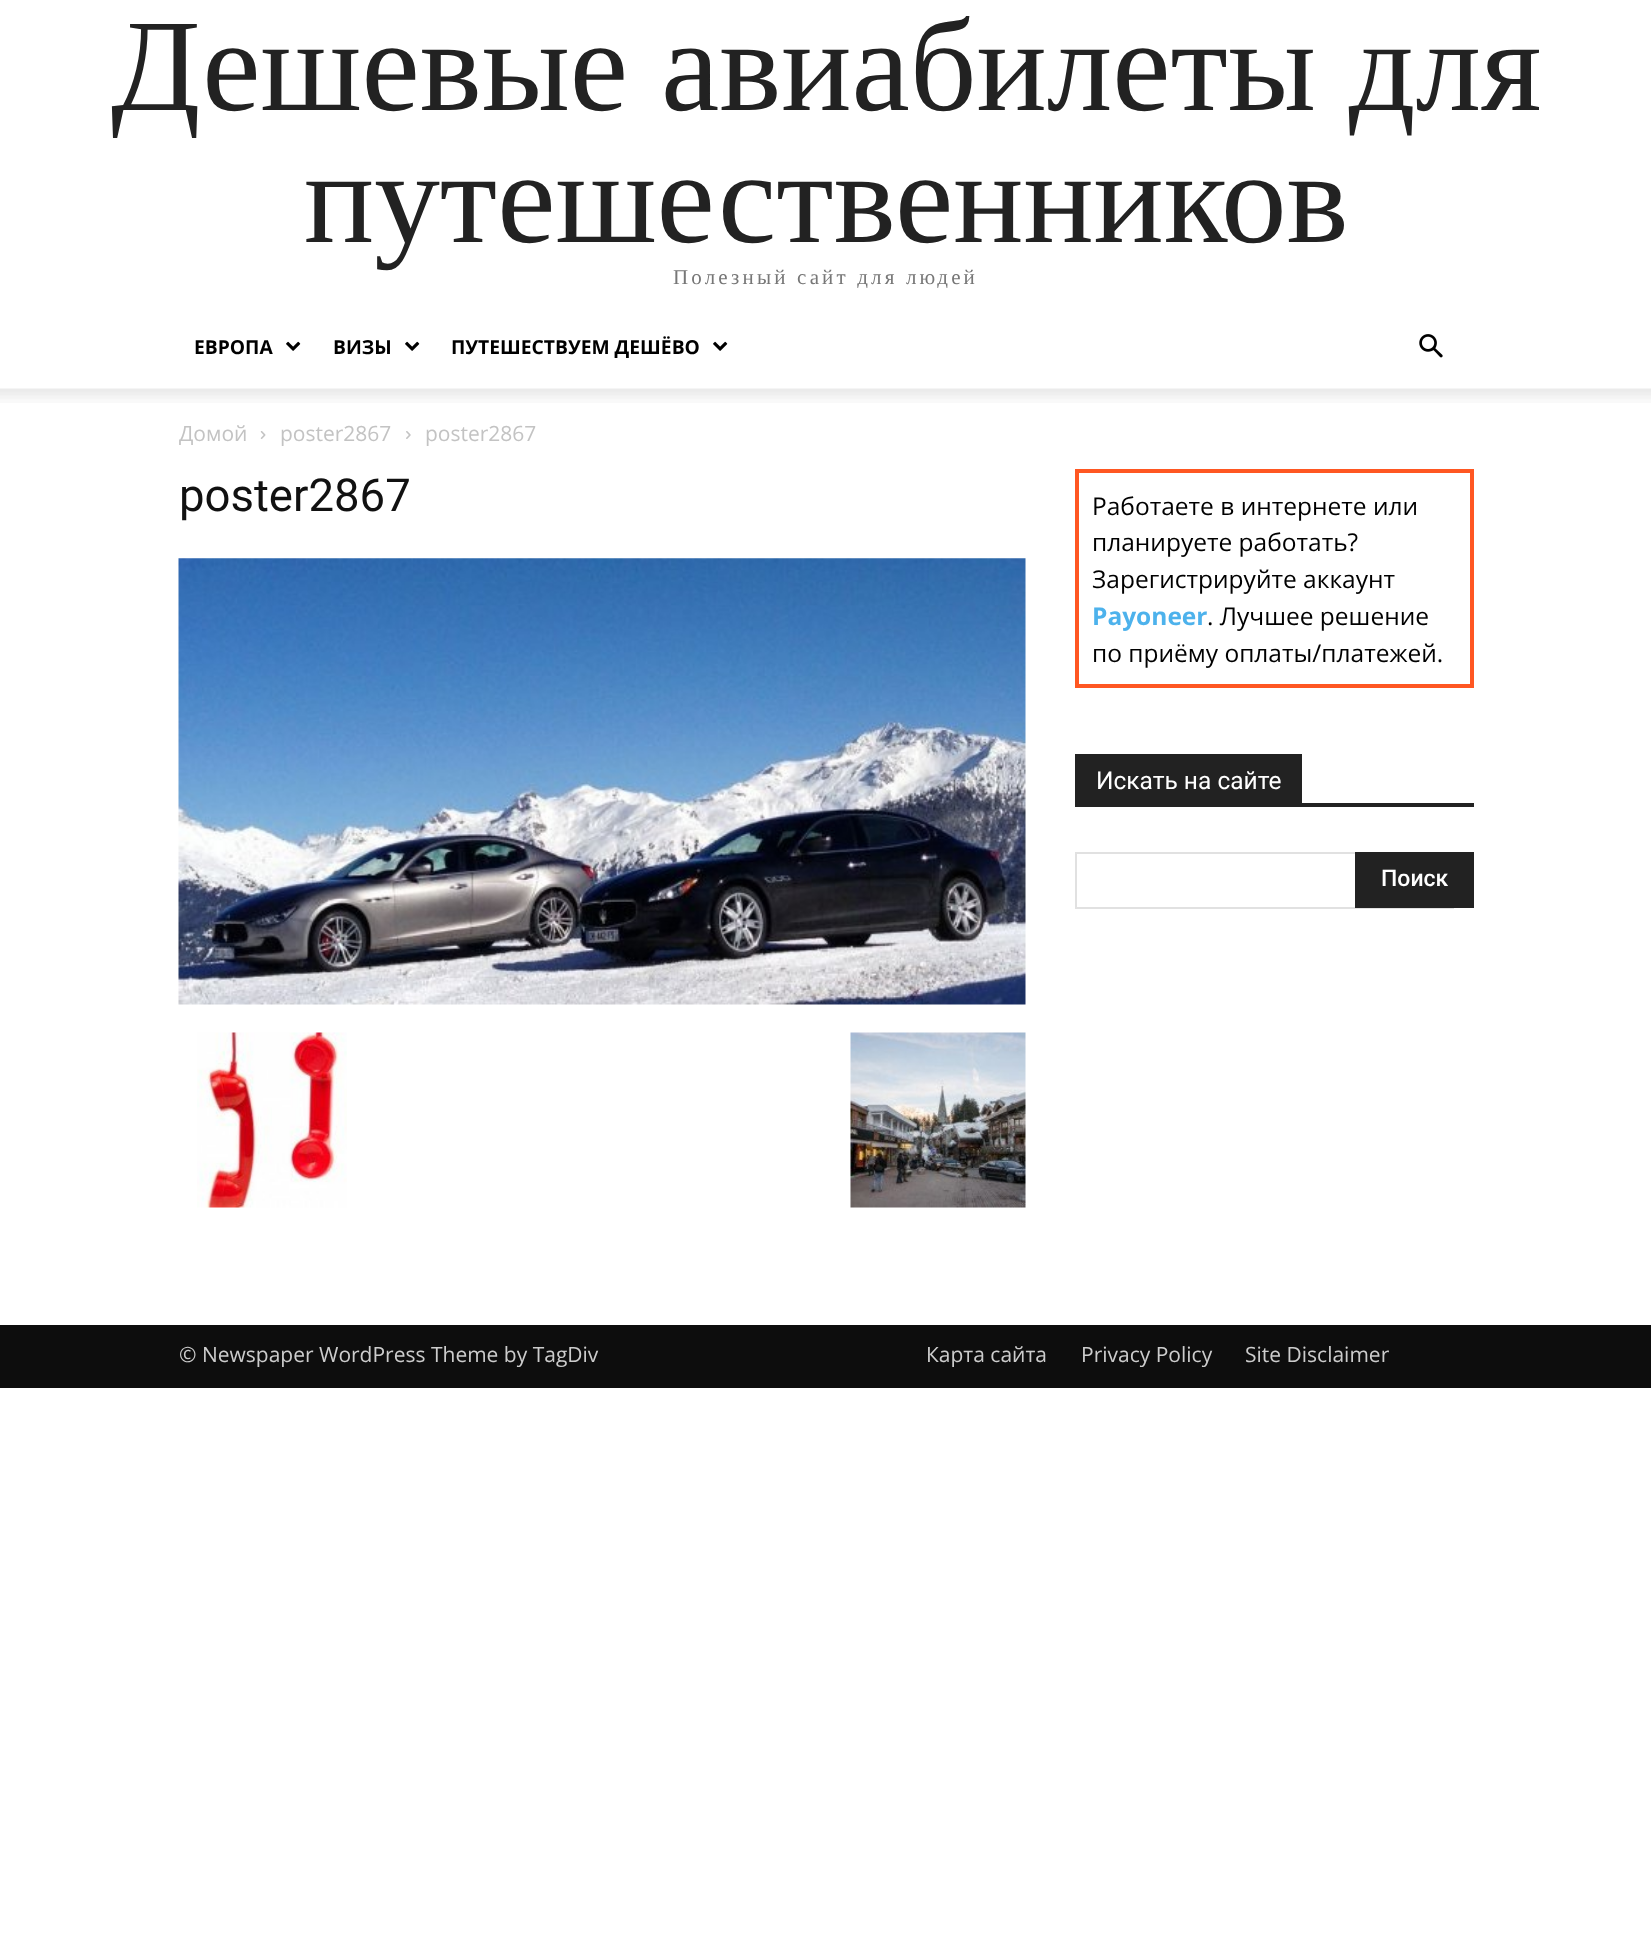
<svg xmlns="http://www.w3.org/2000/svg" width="1651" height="1948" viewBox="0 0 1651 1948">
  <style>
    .t1 { font: 131.25px Liberation Serif; fill: #222; }
    .t2 { font: 21px Liberation Serif; letter-spacing: 3.15px; fill: #777; }
    .t3 { font: bold 19.25px Open Sans; fill: #000; }
    .t4 { font: 21px Open Sans; fill: #c3c3c3; }
    .t5 { font: 45.5px Roboto; fill: #111; }
    .t6 { font: 24.5px Open Sans; fill: #000; }
    .t7 { font: bold 24.5px Open Sans; fill: #4db2ec; }
    .t8 { font: 24.5px Roboto; fill: #fff; }
    .t9 { font: 500 23px Roboto; fill: #fff; }
    .t10 { font: 21px Open Sans; fill: #ccc; }
  </style>
  <rect width="100%" height="100%" fill="#fff"/>
  <text x="111" y="110" class="t1">Дешевые авиабилеты для</text>
  <text x="304" y="242" class="t1">путешественников</text>
  <text x="673" y="284" class="t2">Полезный сайт для людей</text>
  <text x="194" y="354" class="t3">ЕВРОПА</text>
  <image x="286" y="341" width="15" height="10" href="images/1.png"/>
  <text x="333" y="354" class="t3">ВИЗЫ</text>
  <image x="405" y="341" width="15" height="10" href="images/1.png"/>
  <text x="451" y="354" class="t3">ПУТЕШЕСТВУЕМ ДЕШЁВО</text>
  <image x="713" y="341" width="15" height="10" href="images/1.png"/>
  <image x="1419" y="334" width="24" height="24" href="images/2.png"/>
  <image x="0" y="388" width="1651" height="15" href="images/3.png"/>
  <text x="179" y="441" class="t4">Домой</text>
  <image x="260" y="431" width="6" height="8" href="images/4.png"/>
  <text x="280" y="441" class="t4">poster2867</text>
  <image x="406" y="431" width="5" height="8" href="images/5.png"/>
  <text x="425" y="441" class="t4">poster2867</text>
  <text x="179" y="511" class="t5">poster2867</text>
  <image x="178" y="558" width="848" height="447" href="images/6.png"/>
  <image x="197" y="1032" width="150" height="176" href="images/7.png"/>
  <image x="850" y="1032" width="176" height="176" href="images/8.png"/>
  <rect x="1077" y="471" width="395" height="215" fill="none" stroke="#ff5722" stroke-width="4"/>
  <text x="1092" y="515" class="t6">Работаете в интернете или</text>
  <text x="1092" y="551" class="t6">планируете работать?</text>
  <text x="1092" y="588" class="t6">Зарегистрируйте аккаунт</text>
  <text x="1092" y="625" class="t7">Payoneer</text>
  <text x="1207" y="625" class="t6">. Лучшее решение</text>
  <text x="1092" y="662" class="t6">по приёму оплаты/платежей.</text>
  <rect x="1075" y="803" width="399" height="4" fill="#222"/>
  <rect x="1075" y="754" width="227" height="49" fill="#222"/>
  <text x="1096" y="789" class="t8">Искать на сайте</text>
  <rect x="1075" y="852" width="280" height="2" fill="#e1e1e1"/>
  <rect x="1075" y="907" width="379" height="2" fill="#e1e1e1"/>
  <rect x="1075" y="852" width="2" height="56" fill="#e1e1e1"/>
  <rect x="1355" y="852" width="119" height="56" fill="#222"/>
  <text x="1381" y="886" class="t9">Поиск</text>
  <rect x="0" y="1325" width="1651" height="63" fill="#0d0d0d"/>
  <text x="179" y="1362" class="t10">© Newspaper WordPress Theme by TagDiv</text>
  <text x="926" y="1362" class="t10">Карта сайта</text>
  <text x="1081" y="1362" class="t10">Privacy Policy</text>
  <text x="1245" y="1362" class="t10">Site Disclaimer</text>
</svg>
